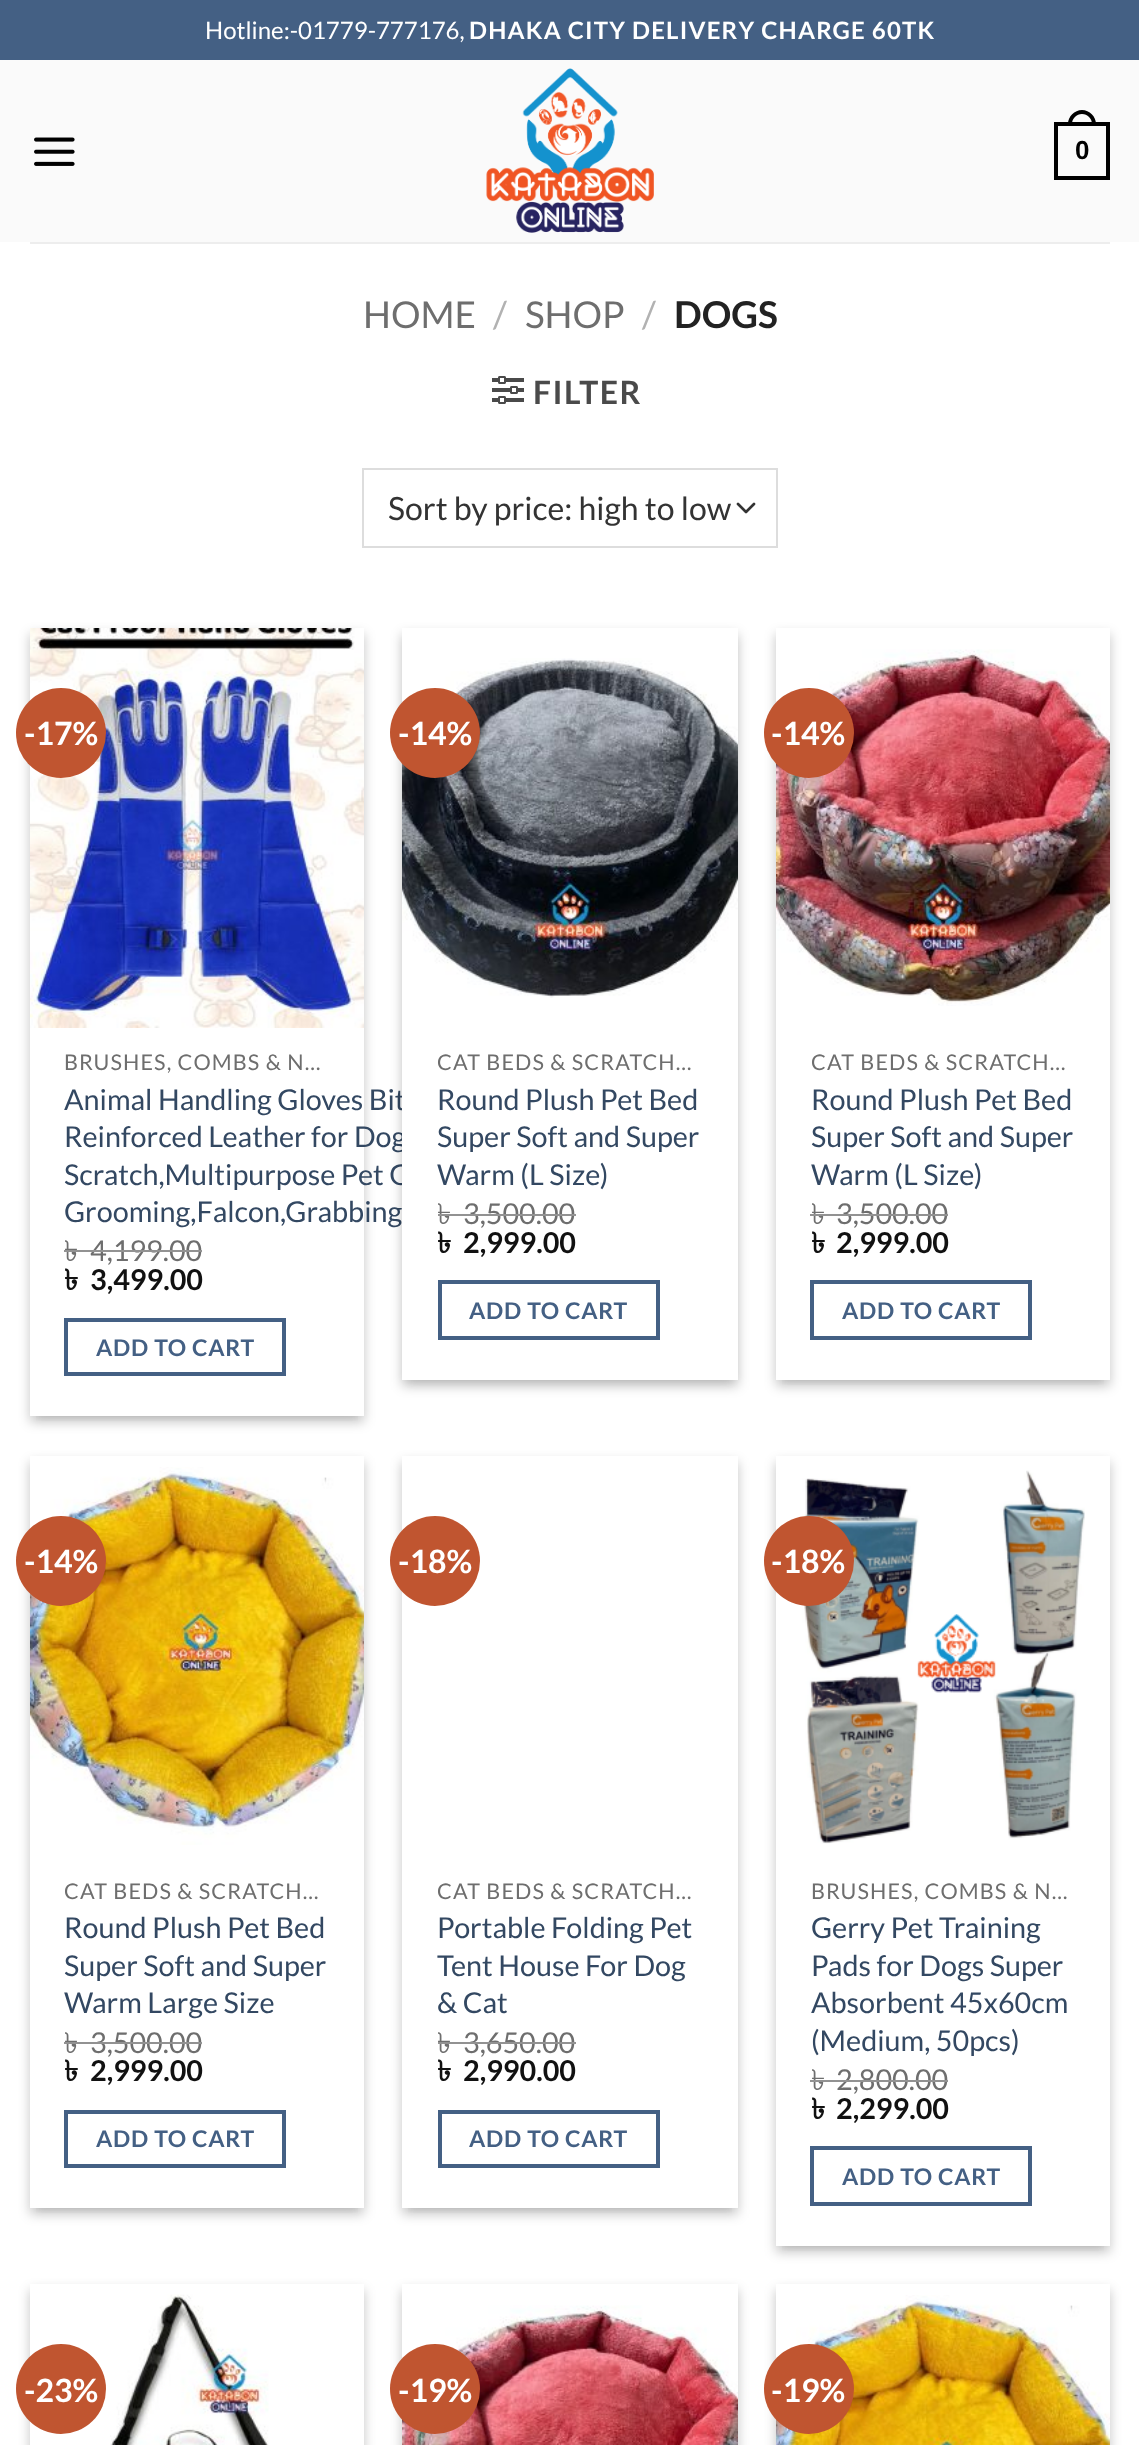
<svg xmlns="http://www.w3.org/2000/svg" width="1139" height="2445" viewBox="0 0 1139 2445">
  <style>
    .t1 { font: 24px Lato; fill: #fff; }
    .t2 { font: bold 24px Lato; letter-spacing: 1.2px; fill: #fff; }
    .t3 { font: bold 26px Liberation Sans; fill: #000; }
    .t4 { font: 37px Lato; fill: #6e6e6e; }
    .t5 { font: 37px Lato; fill: #b2b2b2; }
    .t6 { font: bold 37px Lato; fill: #222; }
    .t7 { font: bold 32px Lato; letter-spacing: 1.5px; fill: #4a4a4a; }
    .t8 { font: 32px Lato; fill: #333; }
    .t9 { font: bold 32px Lato; fill: #fff; }
    .t10 { font: 21.6px Lato; letter-spacing: 1.1px; fill: #6e6e6e; }
    .t11 { font: 28.75px Lato; fill: #334862; }
    .t12 { font: 28.75px Lohit Bengali; fill: #6e6e6e; }
    .t13 { font: 28.75px Lato; fill: #6e6e6e; }
    .t14 { font: bold 28.75px Lohit Bengali; fill: #111; }
    .t15 { font: bold 28.75px Lato; fill: #111; }
    .t16 { font: bold 23px Lato; letter-spacing: 0.75px; fill: #446084; }
  </style>
  <defs>
    <clipPath id="clip1"><path d="M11 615H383V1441H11ZM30 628H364V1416H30Z" clip-rule="evenodd"/></clipPath>
    <clipPath id="clip2"><rect x="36" y="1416" width="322" height="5"/></clipPath>
    <clipPath id="clip3"><path d="M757 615H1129V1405H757ZM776 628H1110V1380H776Z" clip-rule="evenodd"/></clipPath>
    <clipPath id="clip4"><rect x="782" y="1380" width="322" height="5"/></clipPath>
    <clipPath id="clip5"><path d="M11 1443H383V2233H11ZM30 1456H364V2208H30Z" clip-rule="evenodd"/></clipPath>
    <clipPath id="clip6"><rect x="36" y="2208" width="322" height="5"/></clipPath>
    <clipPath id="clip7"><path d="M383 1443H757V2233H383ZM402 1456H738V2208H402Z" clip-rule="evenodd"/></clipPath>
    <clipPath id="clip8"><rect x="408" y="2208" width="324" height="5"/></clipPath>
    <clipPath id="clip9"><path d="M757 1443H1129V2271H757ZM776 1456H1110V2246H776Z" clip-rule="evenodd"/></clipPath>
    <clipPath id="clip10"><rect x="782" y="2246" width="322" height="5"/></clipPath>
    <clipPath id="clip11"><path d="M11 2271H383V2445H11ZM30 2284H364V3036H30Z" clip-rule="evenodd"/></clipPath>
    <clipPath id="clip12"><path d="M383 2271H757V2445H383ZM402 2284H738V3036H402Z" clip-rule="evenodd"/></clipPath>
    <clipPath id="clip13"><path d="M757 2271H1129V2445H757ZM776 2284H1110V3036H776Z" clip-rule="evenodd"/></clipPath>
  </defs>
  <rect width="100%" height="100%" fill="#fff"/>
  <rect x="0" y="0" width="1139" height="60" fill="#446084"/>
  <text x="205" y="39" class="t1">Hotline:-01779-777176,</text>
  <text x="469" y="39" class="t2">DHAKA CITY DELIVERY CHARGE 60TK</text>
  <rect x="0" y="60" width="1139" height="182" fill="#fafafa"/>
  <image x="34" y="137" width="41" height="29" href="images/1.png"/>
  <image x="486" y="68" width="168" height="165" href="images/2.png"/>
  <rect x="1056" y="124" width="52" height="54" fill="none" stroke="#000" stroke-width="4"/>
  <path d="M1082 110C1089.5 110 1096 116.5 1096 124V126H1068V124C1068 116.5 1074.5 110 1082 110ZM1082 114C1087.5 114 1092 118.5 1092 124V126H1072V124C1072 118.5 1076.5 114 1082 114Z" fill="#000" fill-rule="evenodd"/>
  <text x="1075" y="159" class="t3">0</text>
  <rect x="30" y="242" width="1080" height="2" fill="#ededed"/>
  <text x="363" y="328" class="t4">HOME</text>
  <text x="493" y="328" class="t5">/</text>
  <text x="525" y="328" class="t4">SHOP</text>
  <text x="642" y="328" class="t5">/</text>
  <text x="674" y="328" class="t6">DOGS</text>
  <image x="492" y="376" width="32" height="28" href="images/3.png"/>
  <text x="533" y="404" class="t7">FILTER</text>
  <path d="M738 504L746 512L754 504" fill="none" stroke="#333" stroke-width="2.7" stroke-linecap="round" stroke-linejoin="round"/>
  <rect x="363" y="469" width="414" height="78" fill="none" stroke="#ddd" stroke-width="2"/>
  <text x="388" y="520" class="t8">Sort by price: high to low</text>
  <g clip-path="url(#clip1)">
    <rect x="30" y="634" width="334" height="788" fill="#0000003b" filter="blur(6px)"/>
  </g>
  <g clip-path="url(#clip2)">
    <rect x="38" y="642" width="318" height="772" fill="#00000029" filter="blur(6px)"/>
  </g>
  <image x="30" y="628" width="334" height="400" href="images/4.png"/>
  <circle cx="61" cy="733" r="45" fill="#c05530"/>
  <text x="24" y="745" class="t9">-17%</text>
  <text x="64" y="1070" class="t10">BRUSHES, COMBS &amp; N…</text>
  <text x="64" y="1110" class="t11">Animal Handling Gloves Bit</text>
  <text x="64" y="1147" class="t11">Reinforced Leather for Dog</text>
  <text x="64" y="1185" class="t11">Scratch,Multipurpose Pet G</text>
  <text x="64" y="1222" class="t11">Grooming,Falcon,Grabbing</text>
  <text x="64" y="1261" class="t12">৳</text>
  <rect x="64" y="1250" width="20" height="2" fill="#929292"/>
  <text x="90" y="1261" class="t13">4,199.00</text>
  <rect x="84" y="1250" width="118" height="2" fill="#929292"/>
  <text x="64" y="1290" class="t14">৳</text>
  <text x="90" y="1290" class="t15">3,499.00</text>
  <rect x="66" y="1320" width="218" height="54" fill="none" stroke="#446084" stroke-width="4"/>
  <text x="96" y="1356" class="t16">ADD TO CART</text>
  <rect x="402" y="634" width="336" height="752" fill="#0000003b" filter="blur(6px)"/>
  <rect x="410" y="642" width="320" height="736" fill="#00000029" filter="blur(6px)"/>
  <rect x="402" y="628" width="336" height="752" fill="#fff"/>
  <image x="402" y="658" width="336" height="340" href="images/5.png"/>
  <circle cx="435" cy="733" r="45" fill="#c05530"/>
  <text x="398" y="745" class="t9">-14%</text>
  <text x="437" y="1070" class="t10">CAT BEDS &amp; SCRATCH…</text>
  <text x="437" y="1110" class="t11">Round Plush Pet Bed</text>
  <text x="437" y="1147" class="t11">Super Soft and Super</text>
  <text x="437" y="1185" class="t11">Warm (L Size)</text>
  <text x="437" y="1224" class="t12">৳</text>
  <rect x="438" y="1214" width="20" height="2" fill="#929292"/>
  <text x="463" y="1224" class="t13">3,500.00</text>
  <rect x="458" y="1214" width="118" height="2" fill="#929292"/>
  <text x="437" y="1253" class="t14">৳</text>
  <text x="463" y="1253" class="t15">2,999.00</text>
  <rect x="440" y="1282" width="218" height="56" fill="none" stroke="#446084" stroke-width="4"/>
  <text x="469" y="1319" class="t16">ADD TO CART</text>
  <g clip-path="url(#clip3)">
    <rect x="776" y="634" width="334" height="752" fill="#0000003b" filter="blur(6px)"/>
  </g>
  <g clip-path="url(#clip4)">
    <rect x="784" y="642" width="318" height="736" fill="#00000029" filter="blur(6px)"/>
  </g>
  <image x="776" y="649" width="334" height="357" href="images/6.png"/>
  <circle cx="809" cy="733" r="45" fill="#c05530"/>
  <text x="771" y="745" class="t9">-14%</text>
  <text x="811" y="1070" class="t10">CAT BEDS &amp; SCRATCH…</text>
  <text x="811" y="1110" class="t11">Round Plush Pet Bed</text>
  <text x="811" y="1147" class="t11">Super Soft and Super</text>
  <text x="811" y="1185" class="t11">Warm (L Size)</text>
  <text x="811" y="1224" class="t12">৳</text>
  <rect x="810" y="1214" width="20" height="2" fill="#929292"/>
  <text x="836" y="1224" class="t13">3,500.00</text>
  <rect x="830" y="1214" width="118" height="2" fill="#929292"/>
  <text x="811" y="1253" class="t14">৳</text>
  <text x="836" y="1253" class="t15">2,999.00</text>
  <rect x="812" y="1282" width="218" height="56" fill="none" stroke="#446084" stroke-width="4"/>
  <text x="842" y="1319" class="t16">ADD TO CART</text>
  <g clip-path="url(#clip5)">
    <rect x="30" y="1462" width="334" height="752" fill="#0000003b" filter="blur(6px)"/>
  </g>
  <g clip-path="url(#clip6)">
    <rect x="38" y="1470" width="318" height="736" fill="#00000029" filter="blur(6px)"/>
  </g>
  <image x="30" y="1467" width="334" height="378" href="images/7.png"/>
  <circle cx="61" cy="1561" r="45" fill="#c05530"/>
  <text x="24" y="1573" class="t9">-14%</text>
  <text x="64" y="1899" class="t10">CAT BEDS &amp; SCRATCH…</text>
  <text x="64" y="1938" class="t11">Round Plush Pet Bed</text>
  <text x="64" y="1976" class="t11">Super Soft and Super</text>
  <text x="64" y="2013" class="t11">Warm Large Size</text>
  <text x="64" y="2053" class="t12">৳</text>
  <rect x="64" y="2042" width="20" height="2" fill="#929292"/>
  <text x="90" y="2053" class="t13">3,500.00</text>
  <rect x="84" y="2042" width="118" height="2" fill="#929292"/>
  <text x="64" y="2081" class="t14">৳</text>
  <text x="90" y="2081" class="t15">2,999.00</text>
  <rect x="66" y="2112" width="218" height="54" fill="none" stroke="#446084" stroke-width="4"/>
  <text x="96" y="2147" class="t16">ADD TO CART</text>
  <g clip-path="url(#clip7)">
    <rect x="402" y="1462" width="336" height="752" fill="#0000003b" filter="blur(6px)"/>
  </g>
  <g clip-path="url(#clip8)">
    <rect x="410" y="1470" width="320" height="736" fill="#00000029" filter="blur(6px)"/>
  </g>
  <circle cx="435" cy="1561" r="45" fill="#c05530"/>
  <text x="398" y="1573" class="t9">-18%</text>
  <text x="437" y="1899" class="t10">CAT BEDS &amp; SCRATCH…</text>
  <text x="437" y="1938" class="t11">Portable Folding Pet</text>
  <text x="437" y="1976" class="t11">Tent House For Dog</text>
  <text x="437" y="2013" class="t11">&amp; Cat</text>
  <text x="437" y="2053" class="t12">৳</text>
  <rect x="438" y="2042" width="20" height="2" fill="#929292"/>
  <text x="463" y="2053" class="t13">3,650.00</text>
  <rect x="458" y="2042" width="118" height="2" fill="#929292"/>
  <text x="437" y="2081" class="t14">৳</text>
  <text x="463" y="2081" class="t15">2,990.00</text>
  <rect x="440" y="2112" width="218" height="54" fill="none" stroke="#446084" stroke-width="4"/>
  <text x="469" y="2147" class="t16">ADD TO CART</text>
  <g clip-path="url(#clip9)">
    <rect x="776" y="1462" width="334" height="790" fill="#0000003b" filter="blur(6px)"/>
  </g>
  <g clip-path="url(#clip10)">
    <rect x="784" y="1470" width="318" height="774" fill="#00000029" filter="blur(6px)"/>
  </g>
  <image x="799" y="1470" width="286" height="374" href="images/8.png"/>
  <circle cx="809" cy="1561" r="45" fill="#c05530"/>
  <text x="771" y="1573" class="t9">-18%</text>
  <text x="811" y="1899" class="t10">BRUSHES, COMBS &amp; N…</text>
  <text x="811" y="1938" class="t11">Gerry Pet Training</text>
  <text x="811" y="1976" class="t11">Pads for Dogs Super</text>
  <text x="811" y="2013" class="t11">Absorbent 45x60cm</text>
  <text x="811" y="2051" class="t11">(Medium, 50pcs)</text>
  <text x="811" y="2090" class="t12">৳</text>
  <rect x="810" y="2080" width="20" height="2" fill="#929292"/>
  <text x="836" y="2090" class="t13">2,800.00</text>
  <rect x="830" y="2080" width="118" height="2" fill="#929292"/>
  <text x="811" y="2119" class="t14">৳</text>
  <text x="836" y="2119" class="t15">2,299.00</text>
  <rect x="812" y="2148" width="218" height="56" fill="none" stroke="#446084" stroke-width="4"/>
  <text x="842" y="2185" class="t16">ADD TO CART</text>
  <g clip-path="url(#clip11)">
    <rect x="30" y="2290" width="334" height="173" fill="#0000003b" filter="blur(6px)"/>
  </g>
  <circle cx="61" cy="2389" r="45" fill="#c05530"/>
  <text x="24" y="2402" class="t9">-23%</text>
  <image x="110" y="2294" width="159" height="151" href="images/9.png"/>
  <g clip-path="url(#clip12)">
    <rect x="402" y="2290" width="336" height="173" fill="#0000003b" filter="blur(6px)"/>
  </g>
  <image x="402" y="2305" width="336" height="140" href="images/10.png"/>
  <circle cx="435" cy="2389" r="45" fill="#c05530"/>
  <text x="398" y="2402" class="t9">-19%</text>
  <g clip-path="url(#clip13)">
    <rect x="776" y="2290" width="334" height="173" fill="#0000003b" filter="blur(6px)"/>
  </g>
  <image x="776" y="2295" width="334" height="150" href="images/11.png"/>
  <circle cx="809" cy="2389" r="45" fill="#c05530"/>
  <text x="771" y="2402" class="t9">-19%</text>
</svg>
